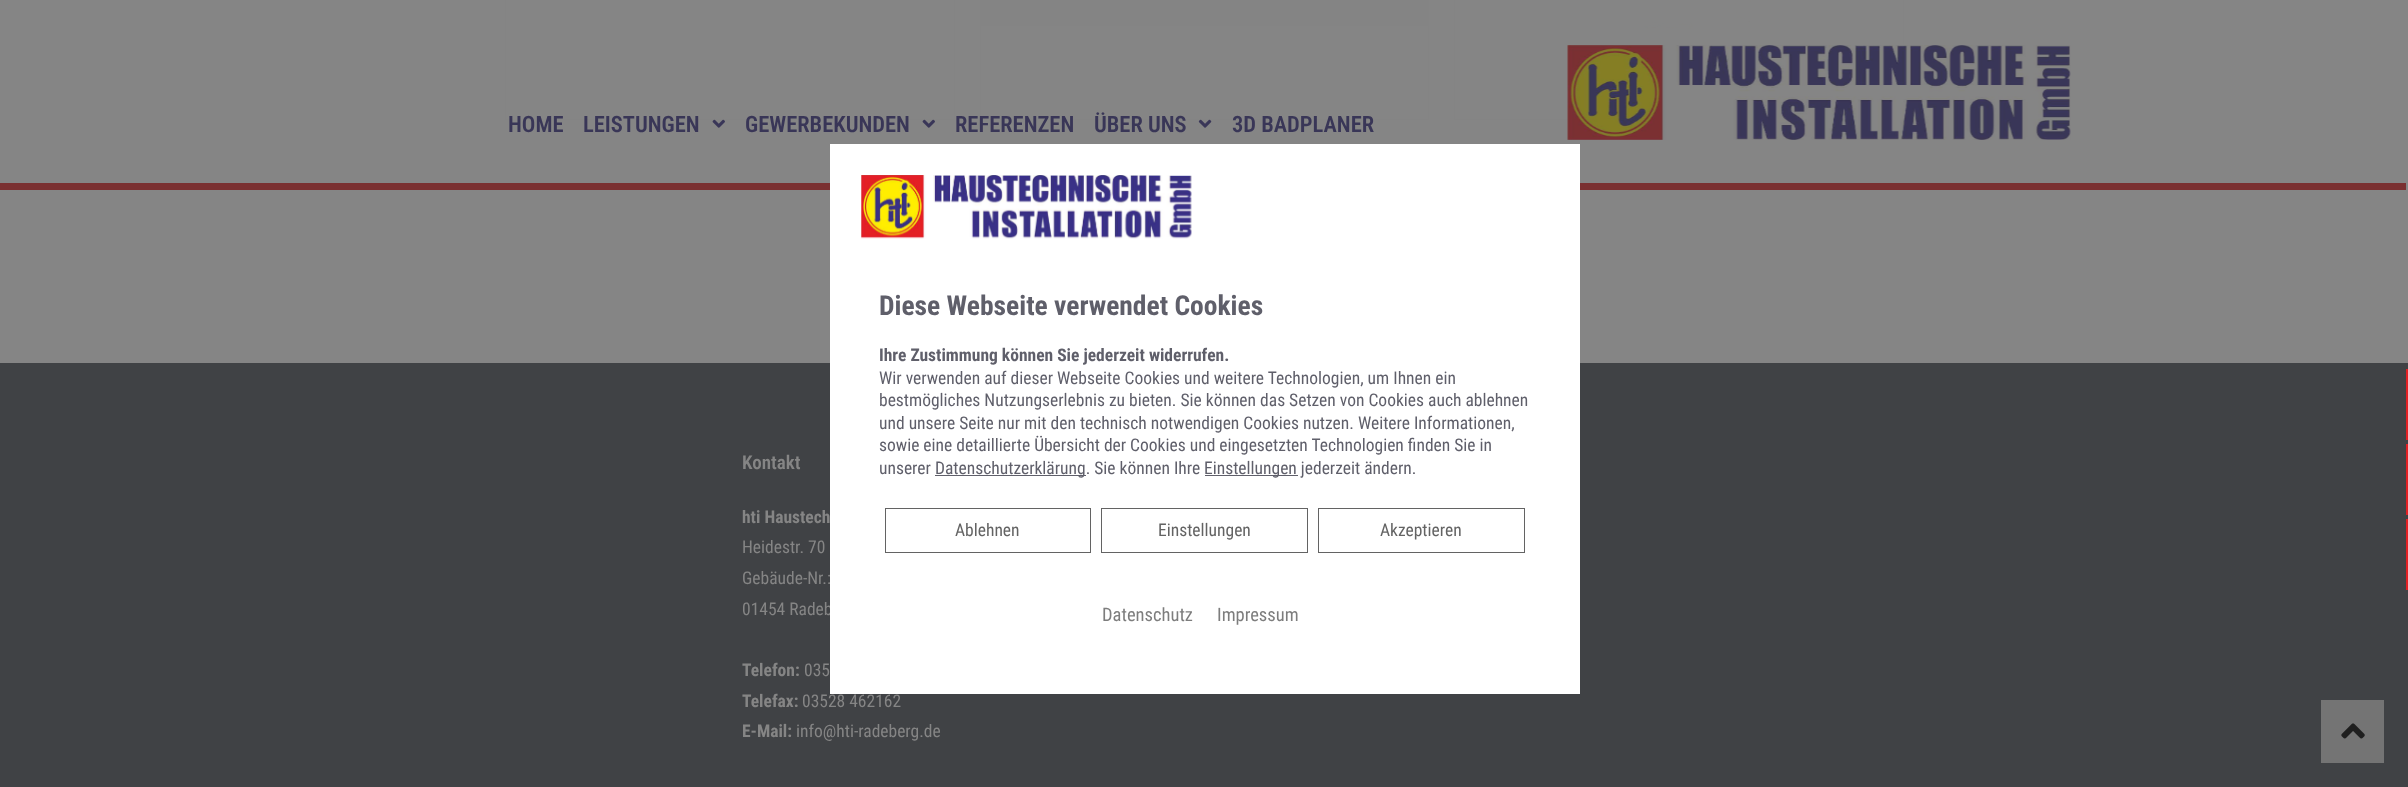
<svg xmlns="http://www.w3.org/2000/svg" width="2408" height="787" viewBox="0 0 2408 787">
  <style>
    .t1 { font: 600 22.5px Roboto Condensed; fill: #393657; }
    .t2 { font: 600 19px Roboto Condensed; fill: #858585; }
    .t3 { font: bold 17.5px Roboto Condensed; fill: #858585; }
    .t4 { font: 17.5px Roboto Condensed; fill: #858585; }
    .t5 { font: bold 27.5px Roboto Condensed; fill: #5f5f6a; }
    .t6 { font: bold 17.5px Roboto Condensed; fill: #5f5f6a; }
    .t7 { font: 17.5px Roboto Condensed; fill: #5f5f6a; }
    .t8 { font: 17.5px Roboto Condensed; fill: #636363; }
    .t9 { font: 18.5px Roboto Condensed; fill: #7d7d7d; }
  </style>
  <rect width="100%" height="100%" fill="#858585"/>
  <rect x="0" y="183" width="2406" height="7" fill="#7a3031"/>
  <rect x="505.5" y="-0.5" width="449" height="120" fill="none" stroke="#7f7f7f"/>
  <rect x="980.5" y="-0.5" width="448" height="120" fill="none" stroke="#7f7f7f"/>
  <rect x="981" y="0" width="447" height="26" fill="#7f7f7f"/>
  <rect x="1454.5" y="-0.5" width="449" height="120" fill="none" stroke="#7f7f7f"/>
  <image x="1467" y="0" width="423" height="107" href="images/4.png"/>
  <path d="M0 0H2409V178C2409 181 2407 183 2404 183H0Z" fill="#858585f2"/>
  <text x="508" y="132" class="t1">HOME</text>
  <text x="583" y="132" class="t1">LEISTUNGEN</text>
  <image x="712" y="119" width="13" height="9" href="images/1.png"/>
  <text x="745" y="132" class="t1">GEWERBEKUNDEN</text>
  <image x="922" y="119" width="13" height="9" href="images/1.png"/>
  <text x="955" y="132" class="t1">REFERENZEN</text>
  <text x="1094" y="132" class="t1">ÜBER UNS</text>
  <image x="1198" y="119" width="14" height="9" href="images/2.png"/>
  <text x="1232" y="132" class="t1">3D BADPLANER</text>
  <image x="1567" y="45" width="504" height="95" href="images/3.png"/>
  <rect x="0" y="363" width="2408" height="424" fill="#404245"/>
  <rect x="2406" y="369" width="2" height="71" fill="#e42024"/>
  <rect x="2406" y="444" width="2" height="71" fill="#e42024"/>
  <rect x="2406" y="519" width="2" height="71" fill="#e42024"/>
  <text x="742" y="469" class="t2">Kontakt</text>
  <text x="742" y="523" class="t3">hti Haustech</text>
  <text x="742" y="553" class="t4">Heidestr. 70</text>
  <text x="742" y="584" class="t4">Gebäude-Nr.:</text>
  <text x="742" y="615" class="t4">01454 Radeb</text>
  <text x="742" y="676" class="t3">Telefon:</text>
  <text x="804" y="676" class="t4">035</text>
  <text x="742" y="707" class="t3">Telefax:</text>
  <text x="802" y="707" class="t4">03528 462162</text>
  <text x="742" y="737" class="t3">E-Mail:</text>
  <text x="796" y="737" class="t4">info@hti-radeberg.de</text>
  <rect x="830" y="144" width="750" height="550" fill="#fff"/>
  <image x="861" y="175" width="331" height="64" href="images/5.png"/>
  <text x="879" y="315" class="t5">Diese Webseite verwendet Cookies</text>
  <text x="879" y="361" class="t6">Ihre Zustimmung können Sie jederzeit widerrufen.</text>
  <text x="879" y="384" class="t7">Wir verwenden auf dieser Webseite Cookies und weitere Technologien, um Ihnen ein</text>
  <text x="879" y="406" class="t7">bestmögliches Nutzungserlebnis zu bieten. Sie können das Setzen von Cookies auch ablehnen</text>
  <text x="879" y="429" class="t7">und unsere Seite nur mit den technisch notwendigen Cookies nutzen. Weitere Informationen,</text>
  <text x="879" y="451" class="t7">sowie eine detaillierte Übersicht der Cookies und eingesetzten Technologien finden Sie in</text>
  <text x="879" y="474" class="t7">unserer</text>
  <rect x="935" y="475" width="151" height="1" fill="#5f5f6a"/>
  <text x="935" y="474" class="t7">Datenschutzerklärung. Sie können Ihre</text>
  <rect x="1205" y="475" width="93" height="1" fill="#5f5f6a"/>
  <text x="1204" y="474" class="t7">Einstellungen jederzeit ändern.</text>
  <rect x="885.5" y="508.5" width="205" height="44" fill="none" stroke="#636363"/>
  <text x="955" y="536" class="t8">Ablehnen</text>
  <rect x="1101.5" y="508.5" width="206" height="44" fill="none" stroke="#636363"/>
  <text x="1158" y="536" class="t8">Einstellungen</text>
  <rect x="1318.5" y="508.5" width="206" height="44" fill="none" stroke="#636363"/>
  <text x="1380" y="536" class="t8">Akzeptieren</text>
  <text x="1102" y="621" class="t9">Datenschutz</text>
  <text x="1217" y="621" class="t9">Impressum</text>
  <rect x="2321" y="700" width="63" height="63" fill="#747474"/>
  <image x="2341" y="723" width="24" height="16" href="images/6.png"/>
</svg>
